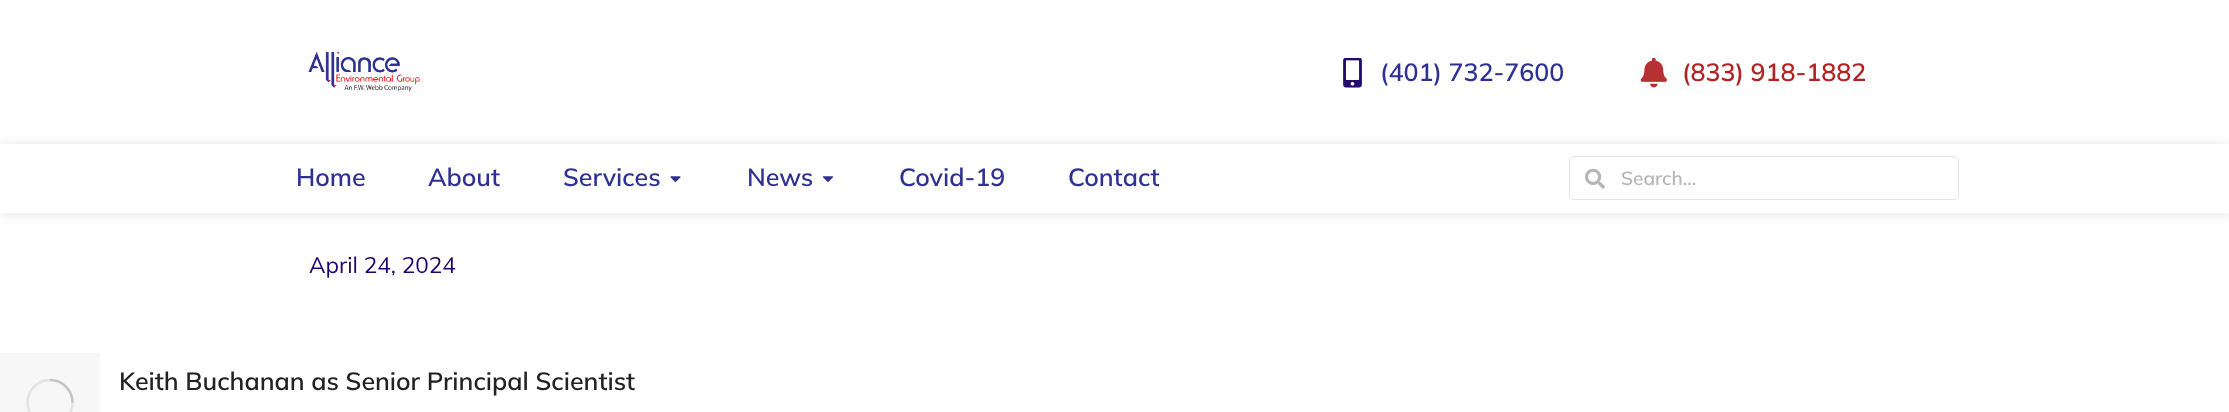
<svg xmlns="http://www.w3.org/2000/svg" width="2229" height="412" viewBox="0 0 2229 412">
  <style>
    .t1 { font: 600 25px Mulish; fill: #2e3192; }
    .t2 { font: 600 25px Mulish; fill: #b12323; }
    .t3 { font: 600 19px Mulish; fill: #b6b6b6; }
    .t4 { font: 22.5px Mulish; fill: #1c036d; }
    .t5 { font: 600 25px Mulish; fill: #222; }
  </style>
  <defs>
    <clipPath id="clip1"><rect x="26" y="379" width="48" height="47"/></clipPath>
  </defs>
  <rect width="100%" height="100%" fill="#fff"/>
  <image x="308" y="51" width="112" height="41" href="images/1.png"/>
  <image x="1343" y="58" width="19" height="30" href="images/2.png"/>
  <text x="1380" y="81" class="t1">(401) 732-7600</text>
  <image x="1640" y="58" width="27" height="30" href="images/3.png"/>
  <text x="1682" y="81" class="t2">(833) 918-1882</text>
  <rect x="0" y="145" width="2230" height="69" fill="#0000001c" filter="blur(6px)"/>
  <rect x="0" y="144" width="2229" height="69" fill="#fff"/>
  <text x="296" y="186" class="t1">Home</text>
  <text x="428" y="186" class="t1">About</text>
  <text x="563" y="186" class="t1">Services</text>
  <image x="670" y="176" width="11" height="6" href="images/4.png"/>
  <text x="747" y="186" class="t1">News</text>
  <image x="822" y="176" width="11" height="6" href="images/5.png"/>
  <text x="899" y="186" class="t1">Covid-19</text>
  <text x="1068" y="186" class="t1">Contact</text>
  <rect x="1569.5" y="156.5" width="389" height="43" rx="4.5" fill="none" stroke="#e3e3e3"/>
  <image x="1585" y="168" width="20" height="21" href="images/6.png"/>
  <text x="1621" y="185" class="t3">Search...</text>
  <text x="309" y="273" class="t4">April 24, 2024</text>
  <rect x="0" y="353" width="100" height="59" fill="#f7f7f7"/>
  <g clip-path="url(#clip1)">
    <circle cx="50" cy="402.5" r="22.5" fill="none" stroke="#e3e3e3" stroke-width="2.5"/>
  </g>
  <path d="M72.5 402.5C72.5 390 62.5 380 50 380" fill="none" stroke="#66666640" stroke-width="2.5"/>
  <text x="119" y="390" class="t5">Keith Buchanan as Senior Principal Scientist</text>
</svg>
